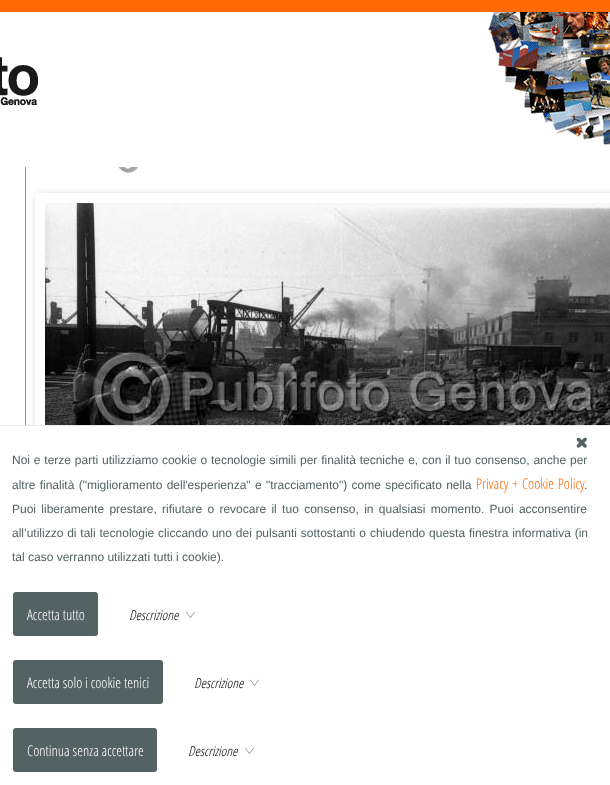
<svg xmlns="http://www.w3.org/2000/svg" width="610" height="785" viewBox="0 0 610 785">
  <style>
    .t1 { font: 12px Liberation Sans; fill: #536262; }
    .t2 { font: 300 14.75px Open Sans; fill: #ff6a06; }
    .t3 { font: 300 14.75px Open Sans; fill: #fff; }
    .t4 { font: italic 300 13.5px Open Sans; fill: #000; }
  </style>
  <defs>
    <clipPath id="clip1"><path d="M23 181H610V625H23ZM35 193H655V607H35Z" clip-rule="evenodd"/></clipPath>
  </defs>
  <rect width="100%" height="100%" fill="#ff6a06"/>
  <image x="0" y="12" width="610" height="155" href="images/1.png"/>
  <rect x="0" y="167" width="610" height="258" fill="#fff"/>
  <image x="118" y="167" width="21" height="6" href="images/2.png"/>
  <rect x="25" y="167" width="1" height="258" fill="#ff7315"/>
  <g clip-path="url(#clip1)">
    <rect x="38" y="196" width="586" height="414" fill="#bab8b8" filter="blur(4.5px)"/>
  </g>
  <image x="45" y="203" width="565" height="222" href="images/3.png"/>
  <rect x="0" y="426" width="610" height="359" fill="#fff"/>
  <rect x="0" y="425" width="610" height="1" fill="#eaeaea"/>
  <image x="576" y="437" width="11" height="11" href="images/4.png"/>
  <text x="12" y="464" word-spacing="0.5" class="t1">Noi e terze parti utilizziamo cookie o tecnologie simili per finalità tecniche e, con il tuo consenso, anche per</text>
  <text x="12" y="489" word-spacing="1" class="t1">altre finalità ("miglioramento dell'esperienza" e "tracciamento") come specificato nella</text>
  <text x="476" y="489" word-spacing="1" class="t2">Privacy + Cookie Policy</text>
  <text x="584" y="489" class="t1">.</text>
  <text x="12" y="513" word-spacing="2" class="t1">Puoi liberamente prestare, rifiutare o revocare il tuo consenso, in qualsiasi momento. Puoi acconsentire</text>
  <text x="12" y="537" word-spacing="0.5" class="t1">all’utilizzo di tali tecnologie cliccando uno dei pulsanti sottostanti o chiudendo questa finestra informativa (in</text>
  <text x="12" y="561" class="t1">tal caso verranno utilizzati tutti i cookie).</text>
  <rect x="13" y="592" width="85" height="44" rx="3" fill="#536262"/>
  <text x="27" y="620" class="t3">Accetta tutto</text>
  <text x="129" y="620" class="t4">Descrizione</text>
  <image x="186" y="611" width="9" height="7" href="images/5.png"/>
  <rect x="13" y="660" width="150" height="44" rx="3" fill="#536262"/>
  <text x="27" y="688" class="t3">Accetta solo i cookie tenici</text>
  <text x="194" y="688" class="t4">Descrizione</text>
  <image x="250" y="679" width="9" height="7" href="images/5.png"/>
  <rect x="13" y="728" width="144" height="44" rx="3" fill="#536262"/>
  <text x="27" y="756" class="t3">Continua senza accettare</text>
  <text x="188" y="756" class="t4">Descrizione</text>
  <image x="245" y="747" width="9" height="7" href="images/5.png"/>
</svg>
